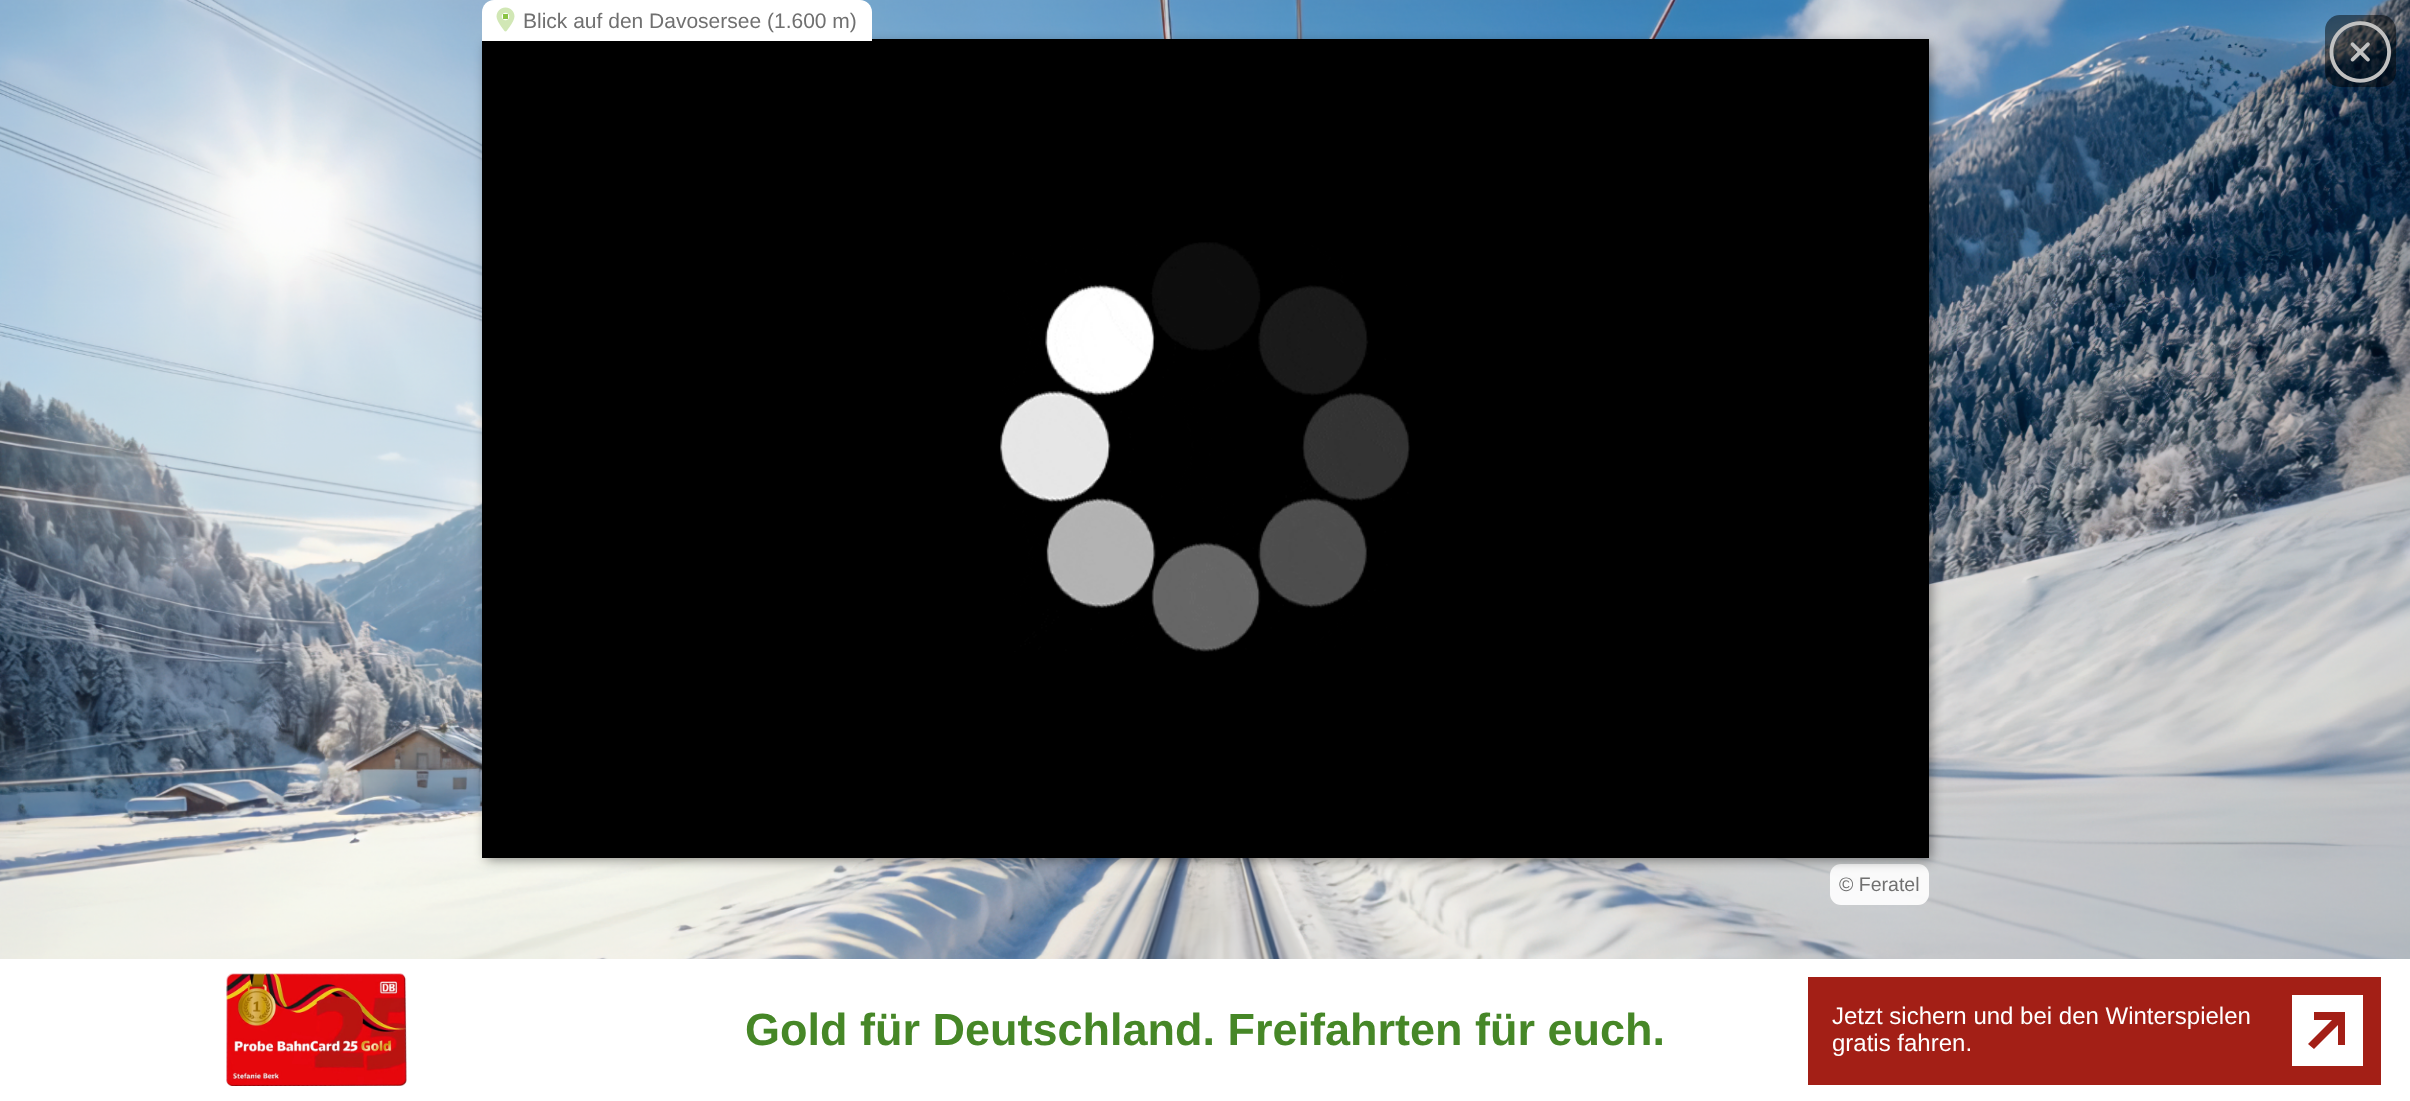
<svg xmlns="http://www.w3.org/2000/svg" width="2410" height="1101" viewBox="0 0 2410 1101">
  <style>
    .t1 { font: 21px Liberation Sans; fill: #707070; }
    .t2 { font: 19.5px Liberation Sans; fill: #707070; }
    .t3 { font: bold 45px Liberation Sans; fill: #468727; }
    .t4 { font: 24px Liberation Sans; fill: #fff; }
  </style>
  <rect width="100%" height="100%" fill="#fff"/>
  <image x="0" y="0" width="2410" height="959" href="images/1.png"/>
  <rect x="1830" y="864" width="99" height="41" rx="11" fill="#ffffffe6"/>
  <rect x="486" y="44" width="1445" height="816" fill="#0000006e" filter="blur(6px)"/>
  <rect x="482" y="39" width="1447" height="819" fill="#000"/>
  <path d="M494 0H860C866.5 0 872 5.5 872 12V41H482V12C482 5.5 487.5 0 494 0Z" fill="#fff"/>
  <rect x="503" y="14" width="5" height="5" fill="#8bc446"/>
  <image x="496" y="7" width="19" height="25" href="images/2.png"/>
  <text x="523" y="28" class="t1">Blick auf den Davosersee (1.600 m)</text>
  <image x="1000" y="242" width="410" height="410" href="images/3.png"/>
  <text x="1839" y="891" class="t2">© Feratel</text>
  <rect x="2325" y="15" width="71" height="72" rx="15" fill="#0000007a"/>
  <image x="2329" y="21" width="62" height="62" href="images/4.png"/>
  <image x="226" y="973" width="181" height="113" href="images/5.png"/>
  <text x="745" y="1045" class="t3">Gold für Deutschland. Freifahrten für euch.</text>
  <rect x="1808" y="977" width="573" height="108" fill="#a31f16"/>
  <text x="1832" y="1024" class="t4">Jetzt sichern und bei den Winterspielen</text>
  <text x="1832" y="1051" class="t4">gratis fahren.</text>
  <path d="M2292 995H2363H2292H2363V1066H2292ZM2341 1012H2314V1020H2332L2308 1044L2314 1049L2338 1025V1045H2345V1012Z" fill="#fff"/>
</svg>
